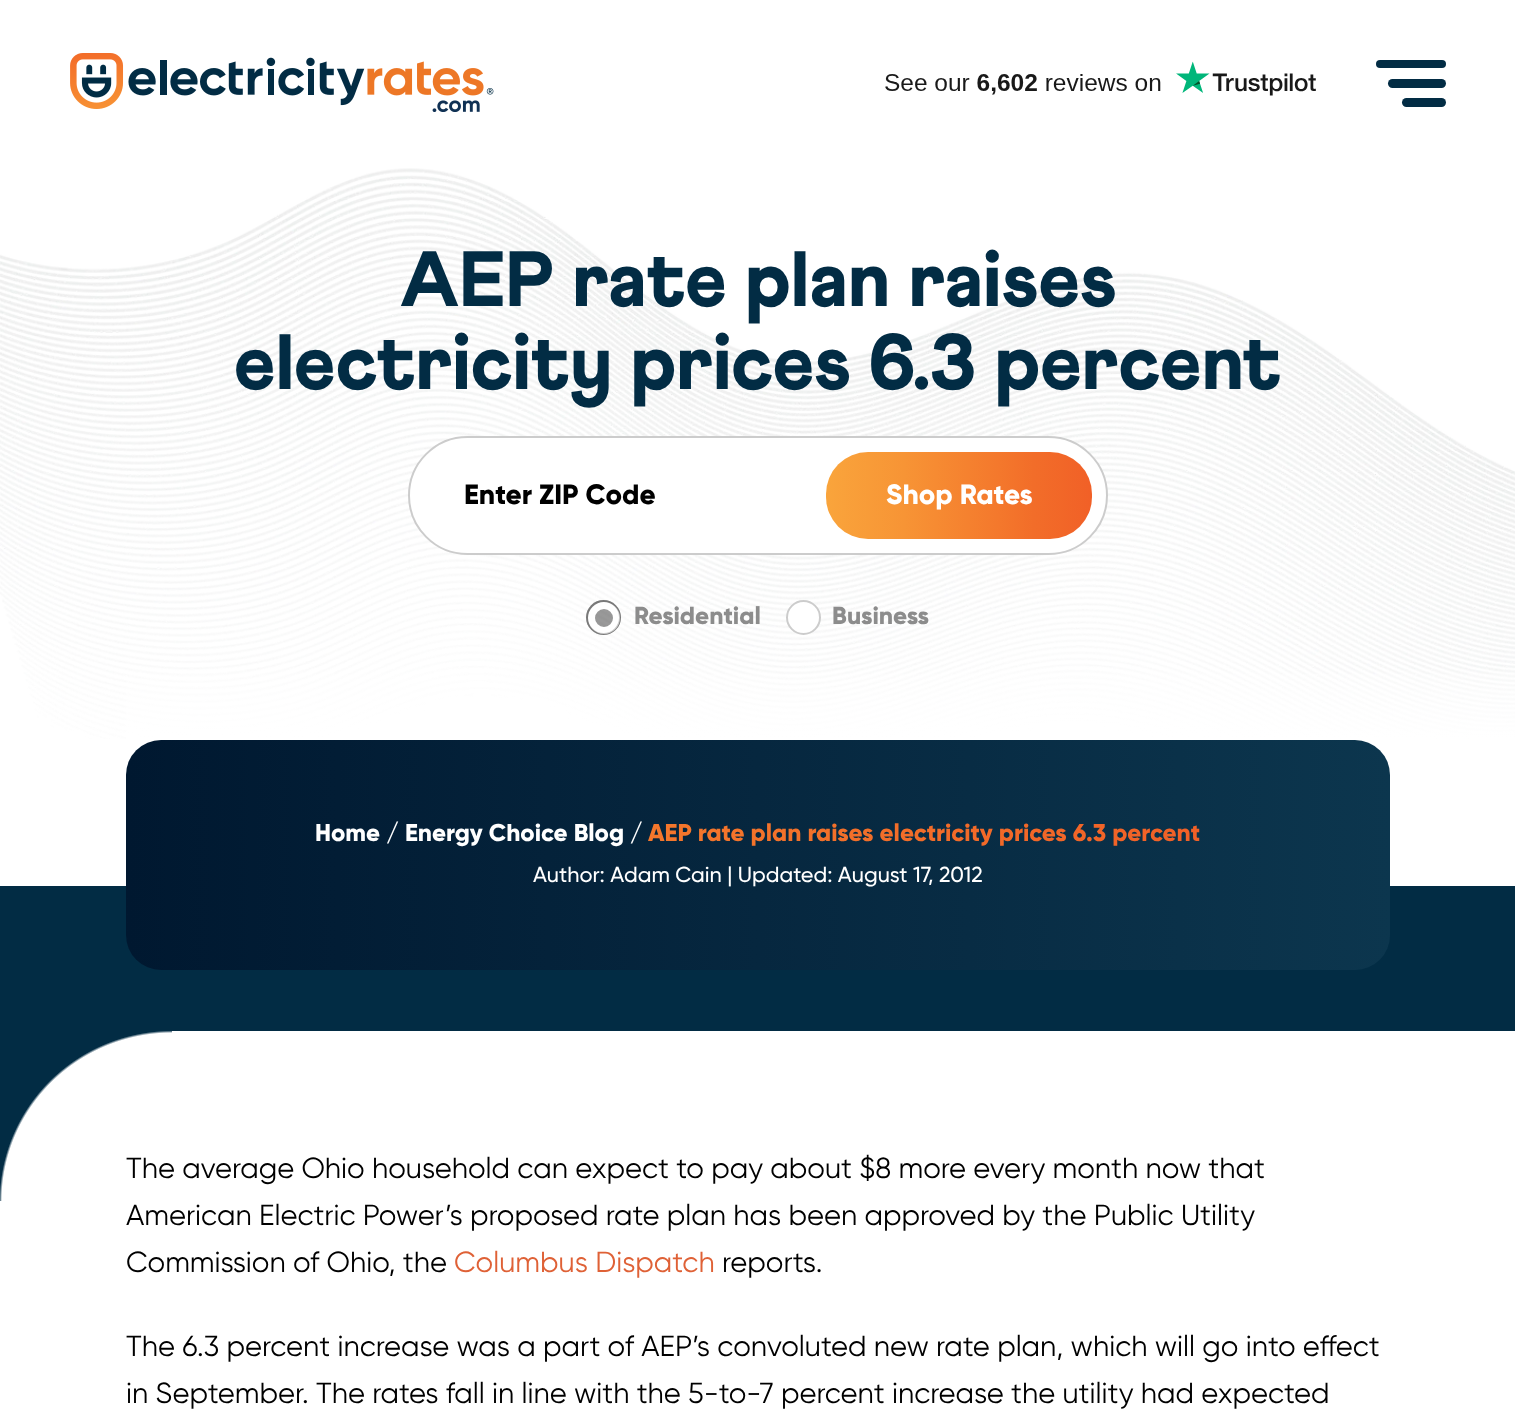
<svg xmlns="http://www.w3.org/2000/svg" width="1515" height="1421" viewBox="0 0 1515 1421">
  <style>
    .t1 { font: 900 78.25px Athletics; fill: #022c44; }
    .t2 { font: 800 28px Gilroy; fill: #000; }
    .t3 { font: 800 28px Gilroy; fill: #fff; }
    .t4 { font: 800 24.5px Gilroy; fill: #8c8c8c; }
    .t5 { font: 800 24.3px Gilroy; fill: #fff; }
    .t6 { font: 800 24.3px Gilroy; fill: url(#g1); }
    .t7 { font: 500 21.7px Gilroy; fill: #fff; }
    .t8 { font: 29.1px Gilroy; fill: #000; }
    .t9 { font: 29.1px Gilroy; fill: #df6136; }
  </style>
  <defs>
    <linearGradient id="g1" gradientUnits="userSpaceOnUse" x1="624" y1="835" x2="1201" y2="835"><stop offset="0" stop-color="#f4782c"/><stop offset="0.5" stop-color="#f26d29"/><stop offset="1" stop-color="#f16027"/></linearGradient>
    <linearGradient id="g2" gradientUnits="userSpaceOnUse" x1="758" y1="740" x2="758" y2="651"><stop offset="0" stop-color="#fff"/><stop offset="1" stop-color="#fff" stop-opacity="0"/></linearGradient>
    <linearGradient id="g3" gradientUnits="userSpaceOnUse" x1="507" y1="495" x2="1092" y2="495"><stop offset="0" stop-color="#f16027"/><stop offset="0.14" stop-color="#f26d29"/><stop offset="0.3" stop-color="#f4782c"/><stop offset="0.35" stop-color="#f79435"/><stop offset="0.45" stop-color="#fbb040"/><stop offset="0.68" stop-color="#f79435"/><stop offset="0.84" stop-color="#f4782c"/><stop offset="0.9" stop-color="#f26d29"/><stop offset="1" stop-color="#f16027"/></linearGradient>
    <linearGradient id="g4" gradientUnits="userSpaceOnUse" x1="126" y1="855" x2="1390" y2="855"><stop offset="0" stop-color="#001830"/><stop offset="1" stop-color="#0c364e"/></linearGradient>
    <radialGradient id="g5" gradientUnits="userSpaceOnUse" cx="0" cy="0" r="1" gradientTransform="matrix(243 0 0 240 172 1201)"><stop offset="0.7" stop-color="#022c44" stop-opacity="0"/><stop offset="0.71" stop-color="#022c44"/></radialGradient>
  </defs>
  <rect width="100%" height="100%" fill="#fff"/>
  <image x="70" y="53" width="424" height="59" href="images/1.png"/>
  <image x="885" y="61" width="431" height="35" href="images/2.png"/>
  <rect x="1376" y="60" width="70" height="8" rx="4" fill="#022c44"/>
  <rect x="1388" y="79" width="58" height="9" rx="4.5" fill="#022c44"/>
  <rect x="1402" y="98" width="44" height="9" rx="4.5" fill="#022c44"/>
  <image x="0" y="168" width="1515" height="571" href="images/3.png"/>
  <rect x="126" y="674" width="1389" height="65" fill="url(#g2)"/>
  <text x="400" y="306" class="t1">AEP rate plan raises</text>
  <text x="234" y="389" class="t1">electricity prices 6.3 percent</text>
  <rect x="408" y="436" width="700" height="119" rx="59.5" fill="#fff"/>
  <rect x="409" y="437" width="698" height="117" rx="58.5" fill="none" stroke="#00000033" stroke-width="2"/>
  <text x="464" y="504" class="t2">Enter ZIP Code</text>
  <rect x="826" y="452" width="266" height="87" rx="42" fill="url(#g3)"/>
  <text x="886" y="504" class="t3">Shop Rates</text>
  <circle cx="603.5" cy="617.5" r="17.5" fill="#00000066"/>
  <circle cx="604" cy="618" r="12.5" fill="none" stroke="#fff" stroke-width="7"/>
  <circle cx="603.5" cy="617.5" r="16.5" fill="none" stroke="#00000033" stroke-width="2"/>
  <text x="634" y="624" class="t4">Residential</text>
  <circle cx="803.5" cy="617.5" r="17.5" fill="#fff"/>
  <circle cx="803.5" cy="617.5" r="16.5" fill="none" stroke="#00000033" stroke-width="2"/>
  <text x="832" y="624" class="t4">Business</text>
  <rect x="0" y="886" width="1515" height="145" fill="#022c44"/>
  <rect x="126" y="740" width="1264" height="230" rx="35" fill="url(#g4)"/>
  <text x="315" y="841" class="t5">Home / Energy Choice Blog /</text>
  <text x="648" y="841" class="t6">AEP rate plan raises electricity prices 6.3 percent</text>
  <text x="533" y="882" class="t7">Author: Adam Cain | Updated: August 17, 2012</text>
  <text x="126" y="1178" class="t8">The average Ohio household can expect to pay about $8 more every month now that</text>
  <rect x="0" y="1031" width="172" height="170" fill="url(#g5)"/>
  <text x="126" y="1225" class="t8">American Electric Power’s proposed rate plan has been approved by the Public Utility</text>
  <text x="126" y="1272" class="t8">Commission of Ohio, the</text>
  <text x="454" y="1272" class="t9">Columbus Dispatch</text>
  <text x="722" y="1272" class="t8">reports.</text>
  <text x="126" y="1356" class="t8">The 6.3 percent increase was a part of AEP’s convoluted new rate plan, which will go into effect</text>
  <text x="126" y="1403" class="t8">in September. The rates fall in line with the 5-to-7 percent increase the utility had expected</text>
</svg>
